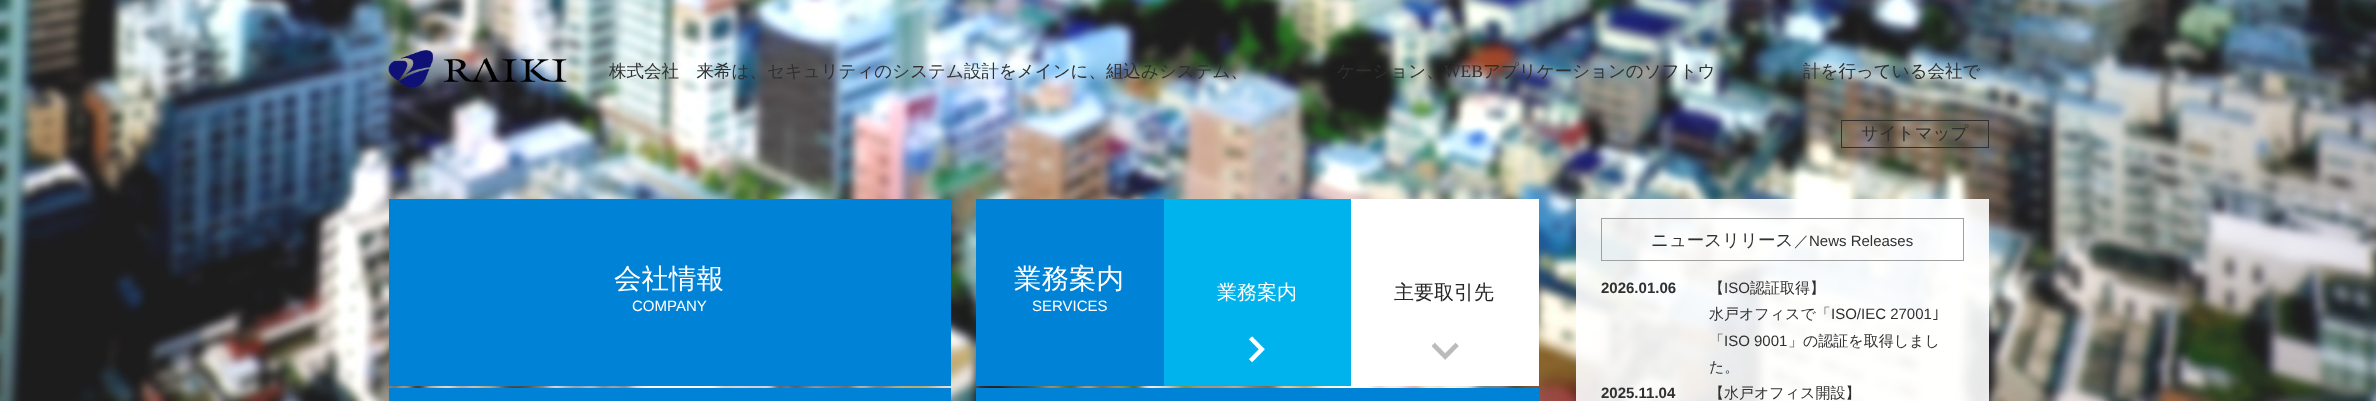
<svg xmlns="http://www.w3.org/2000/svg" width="2376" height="401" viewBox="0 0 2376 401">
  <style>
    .t1 { font: 500 17.5px WenQuanYi Zen Hei; fill: #303030; }
    .t2 { font: 17.5px Liberation Serif; fill: #303030; }
    .t3 { font: 500 27.5px WenQuanYi Zen Hei; fill: #fff; }
    .t4 { font: 15px Liberation Sans; fill: #fff; }
    .t5 { font: 500 20px WenQuanYi Zen Hei; fill: #fff; }
    .t6 { font: 500 20px WenQuanYi Zen Hei; fill: #252525; }
    .t7 { font: 500 15px WenQuanYi Zen Hei; fill: #303030; }
    .t8 { font: 15px Liberation Sans; fill: #303030; }
    .t9 { font: bold 15px Liberation Sans; fill: #303030; }
    .t10 { font: 15px IPAGothic; fill: #303030; }
  </style>
  <rect width="100%" height="100%" fill="#fff"/>
  <image x="0" y="0" width="2376" height="401" href="images/1.png"/>
  <image x="388" y="50" width="179" height="38" href="images/2.png"/>
  <text x="609" y="77" class="t1">株式会社　来希は、セキュリティのシステム設計をメインに、組込みシステム、</text>
  <text x="1337" y="77" class="t1">ケーション、</text>
  <text x="1444" y="77" class="t2">WEB</text>
  <text x="1483" y="77" class="t1">アプリケーションのソフトウ</text>
  <text x="1803" y="77" class="t1">計を行っている会社で</text>
  <rect x="1841.5" y="120.5" width="147" height="27" fill="none" stroke="#303030"/>
  <text x="1861" y="139" class="t1">サイトマップ</text>
  <rect x="389" y="199" width="562" height="187" fill="#0082d6"/>
  <text x="614" y="288" class="t3">会社情報</text>
  <text x="632" y="311" class="t4">COMPANY</text>
  <rect x="976" y="199" width="188" height="187" fill="#0082d6"/>
  <text x="1014" y="288" class="t3">業務案内</text>
  <text x="1032" y="311" class="t4">SERVICES</text>
  <rect x="1164" y="199" width="187" height="187" fill="#00b3ed"/>
  <image x="1248" y="336" width="17" height="27" href="images/3.png"/>
  <text x="1217" y="299" class="t5">業務案内</text>
  <rect x="1351" y="199" width="188" height="187" fill="#fff"/>
  <image x="1431" y="342" width="28" height="18" href="images/4.png"/>
  <text x="1394" y="299" class="t6">主要取引先</text>
  <rect x="389" y="388" width="562" height="13" fill="#0082d6"/>
  <rect x="976" y="388" width="563" height="13" fill="#0082d6"/>
  <rect x="1576" y="199" width="413" height="202" fill="#ffffffe6"/>
  <rect x="1601.5" y="218.5" width="362" height="42" fill="none" stroke="#a0a0a0"/>
  <text x="1651" y="246" class="t1">ニュースリリース</text>
  <text x="1794" y="246" class="t7">／</text>
  <text x="1809" y="246" class="t8">News Releases</text>
  <text x="1601" y="293" class="t9">2026.01.06</text>
  <text x="1709" y="293" class="t7">【</text>
  <text x="1724" y="293" class="t8">ISO</text>
  <text x="1750" y="293" class="t7">認証取得】</text>
  <text x="1709" y="319" class="t7">水戸オフィスで「</text>
  <text x="1831" y="319" class="t8">ISO/IEC 27001</text>
  <text x="1932" y="319" class="t10">｣</text>
  <text x="1709" y="346" class="t7">「</text>
  <text x="1724" y="346" class="t8">ISO 9001</text>
  <text x="1788" y="346" class="t7">」の認証を取得しまし</text>
  <text x="1709" y="372" class="t7">た。</text>
  <text x="1601" y="398" class="t9">2025.11.04</text>
  <text x="1709" y="398" class="t7">【水戸オフィス開設】</text>
</svg>
